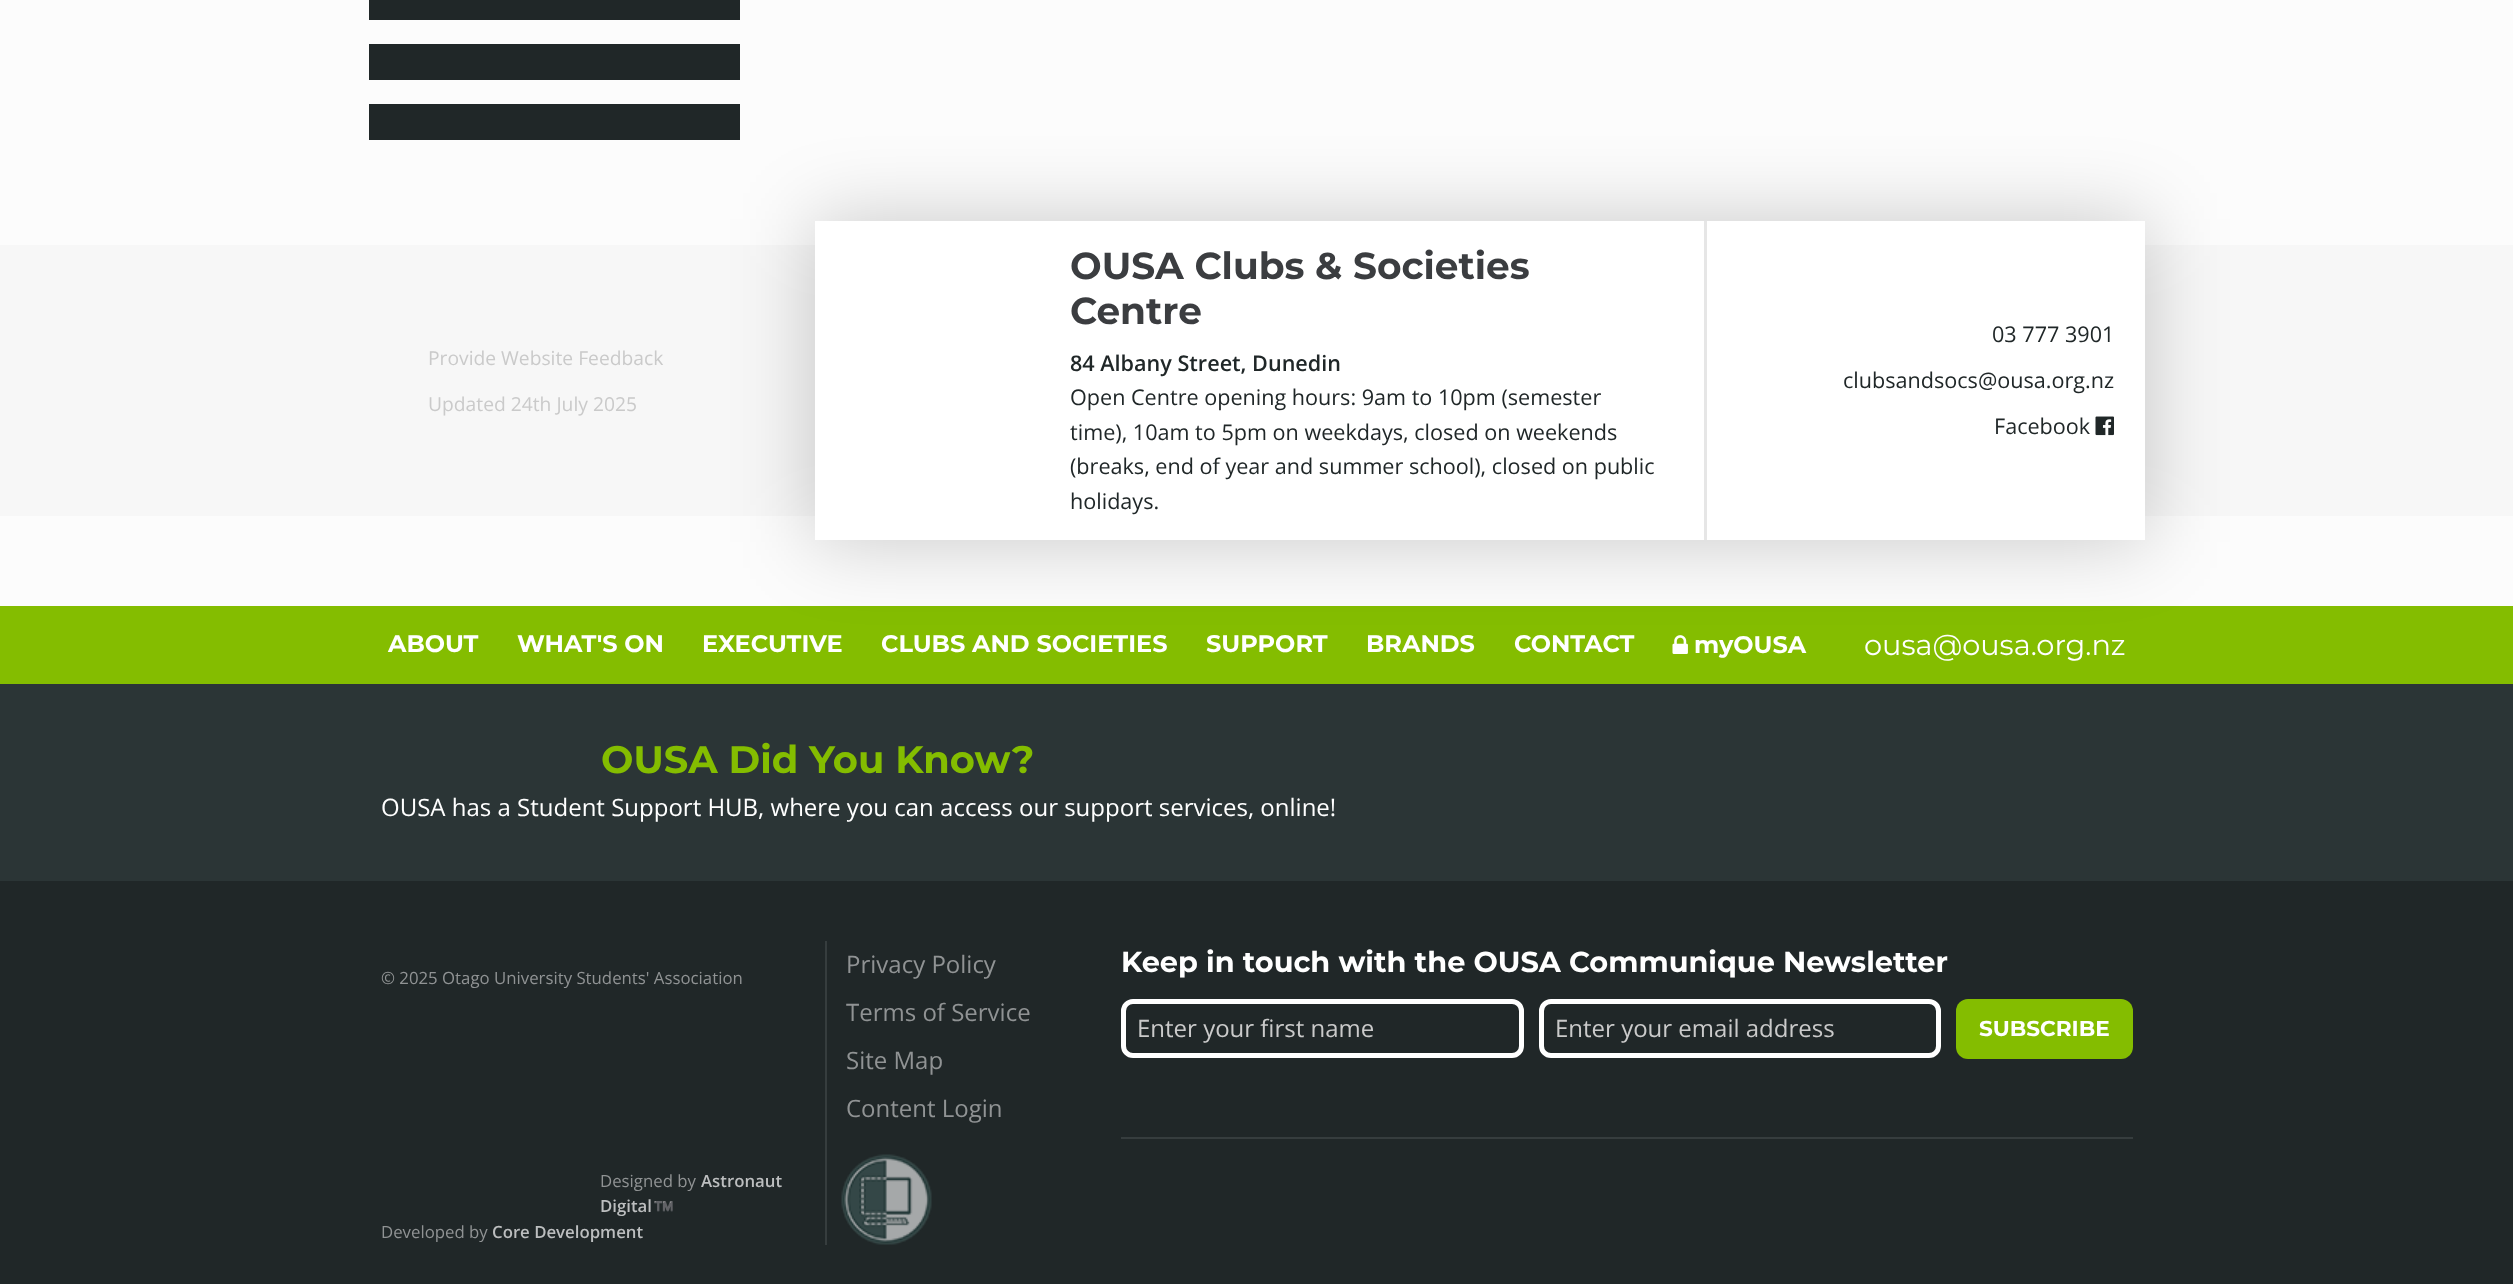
<svg xmlns="http://www.w3.org/2000/svg" width="2513" height="1284" viewBox="0 0 2513 1284">
  <style>
    .t1 { font: 19.25px Open Sans; fill: #cacaca; }
    .t2 { font: bold 37.5px Montserrat; fill: #3b3d40; }
    .t3 { font: 600 21.6px Open Sans; fill: #202728; }
    .t4 { font: 21.6px Open Sans; fill: #202728; }
    .t5 { font: bold 24px Montserrat; fill: #fff; }
    .t6 { font: 28.8px Montserrat; fill: #fff; }
    .t7 { font: bold 38.4px Montserrat; fill: #84bd00; }
    .t8 { font: 24px Open Sans; fill: #fff; }
    .t9 { font: 16.8px Open Sans; fill: #909394; }
    .t10 { font: 600 16.8px Open Sans; fill: #bcbebf; }
    .t11 { font: bold 16.8px Noto Color Emoji; fill: #bcbebf; }
    .t12 { font: 24px Open Sans; fill: #909394; }
    .t13 { font: bold 28.8px Montserrat; fill: #fff; }
    .t14 { font: 24px Open Sans; fill: #cacaca; }
    .t15 { font: bold 21.6px Montserrat; fill: #fff; }
  </style>
  <rect width="100%" height="100%" fill="#fcfcfc"/>
  <rect x="369" y="0" width="371" height="20" fill="#202728"/>
  <rect x="369" y="44" width="371" height="36" fill="#202728"/>
  <rect x="369" y="104" width="371" height="36" fill="#202728"/>
  <rect x="0" y="245" width="2513" height="271" fill="#f7f7f7"/>
  <text x="428" y="365" class="t1">Provide Website Feedback</text>
  <text x="428" y="411" class="t1">Updated 24th July 2025</text>
  <rect x="0" y="606" width="2513" height="78" fill="#84bd00"/>
  <rect x="813" y="219" width="1334" height="323" fill="#00000033" filter="blur(40px)"/>
  <rect x="815" y="221" width="1330" height="319" fill="#fff"/>
  <text x="1070" y="279" class="t2">OUSA Clubs &amp; Societies</text>
  <text x="1070" y="324" class="t2">Centre</text>
  <text x="1070" y="371" class="t3">84 Albany Street, Dunedin</text>
  <text x="1070" y="405" class="t4">Open Centre opening hours: 9am to 10pm (semester</text>
  <text x="1070" y="440" class="t4">time), 10am to 5pm on weekdays, closed on weekends</text>
  <text x="1070" y="474" class="t4">(breaks, end of year and summer school), closed on public</text>
  <text x="1070" y="509" class="t4">holidays.</text>
  <rect x="1704" y="221" width="3" height="319" fill="#e6e6e6"/>
  <text x="1992" y="342" class="t4">03 777 3901</text>
  <text x="1843" y="388" class="t4">clubsandsocs@ousa.org.nz</text>
  <text x="1994" y="434" class="t4">Facebook</text>
  <image x="2095" y="416" width="19" height="20" href="images/1.png"/>
  <text x="388" y="652" class="t5">ABOUT</text>
  <text x="517" y="652" class="t5">WHAT'S ON</text>
  <text x="702" y="652" class="t5">EXECUTIVE</text>
  <text x="881" y="652" class="t5">CLUBS AND SOCIETIES</text>
  <text x="1206" y="652" class="t5">SUPPORT</text>
  <text x="1366" y="652" class="t5">BRANDS</text>
  <text x="1514" y="652" class="t5">CONTACT</text>
  <image x="1672" y="635" width="16" height="19" href="images/2.png"/>
  <text x="1694" y="653" class="t5">myOUSA</text>
  <text x="1864" y="655" class="t6">ousa@ousa.org.nz</text>
  <rect x="0" y="684" width="2513" height="197" fill="#2b3536"/>
  <text x="601" y="773" class="t7">OUSA Did You Know?</text>
  <text x="381" y="816" class="t8">OUSA has a Student Support HUB, where you can access our support services, online!</text>
  <rect x="0" y="881" width="2513" height="403" fill="#202728"/>
  <text x="381" y="984" class="t9">© 2025 Otago University Students' Association</text>
  <text x="600" y="1187" class="t9">Designed by</text>
  <text x="701" y="1187" class="t10">Astronaut</text>
  <text x="600" y="1212" class="t10">Digital</text>
  <text x="653" y="1212" class="t11">™️</text>
  <text x="381" y="1238" class="t9">Developed by</text>
  <text x="492" y="1238" class="t10">Core Development</text>
  <rect x="825" y="941" width="2" height="304" fill="#363d3e"/>
  <text x="846" y="973" class="t12">Privacy Policy</text>
  <text x="846" y="1021" class="t12">Terms of Service</text>
  <text x="846" y="1069" class="t12">Site Map</text>
  <text x="846" y="1117" class="t12">Content Login</text>
  <image x="841" y="1154" width="91" height="91" href="images/3.png"/>
  <text x="1121" y="972" class="t13">Keep in touch with the OUSA Communique Newsletter</text>
  <rect x="1123.5" y="1001.5" width="398" height="54" rx="9.5" fill="none" stroke="#fff" stroke-width="5"/>
  <text x="1137" y="1037" class="t14">Enter your first name</text>
  <rect x="1541.5" y="1001.5" width="397" height="54" rx="9.5" fill="none" stroke="#fff" stroke-width="5"/>
  <text x="1555" y="1037" class="t14">Enter your email address</text>
  <rect x="1956" y="999" width="177" height="60" rx="12" fill="#84bd00"/>
  <text x="1979" y="1036" class="t15">SUBSCRIBE</text>
  <rect x="1121" y="1137" width="1012" height="2" fill="#363d3e"/>
</svg>
